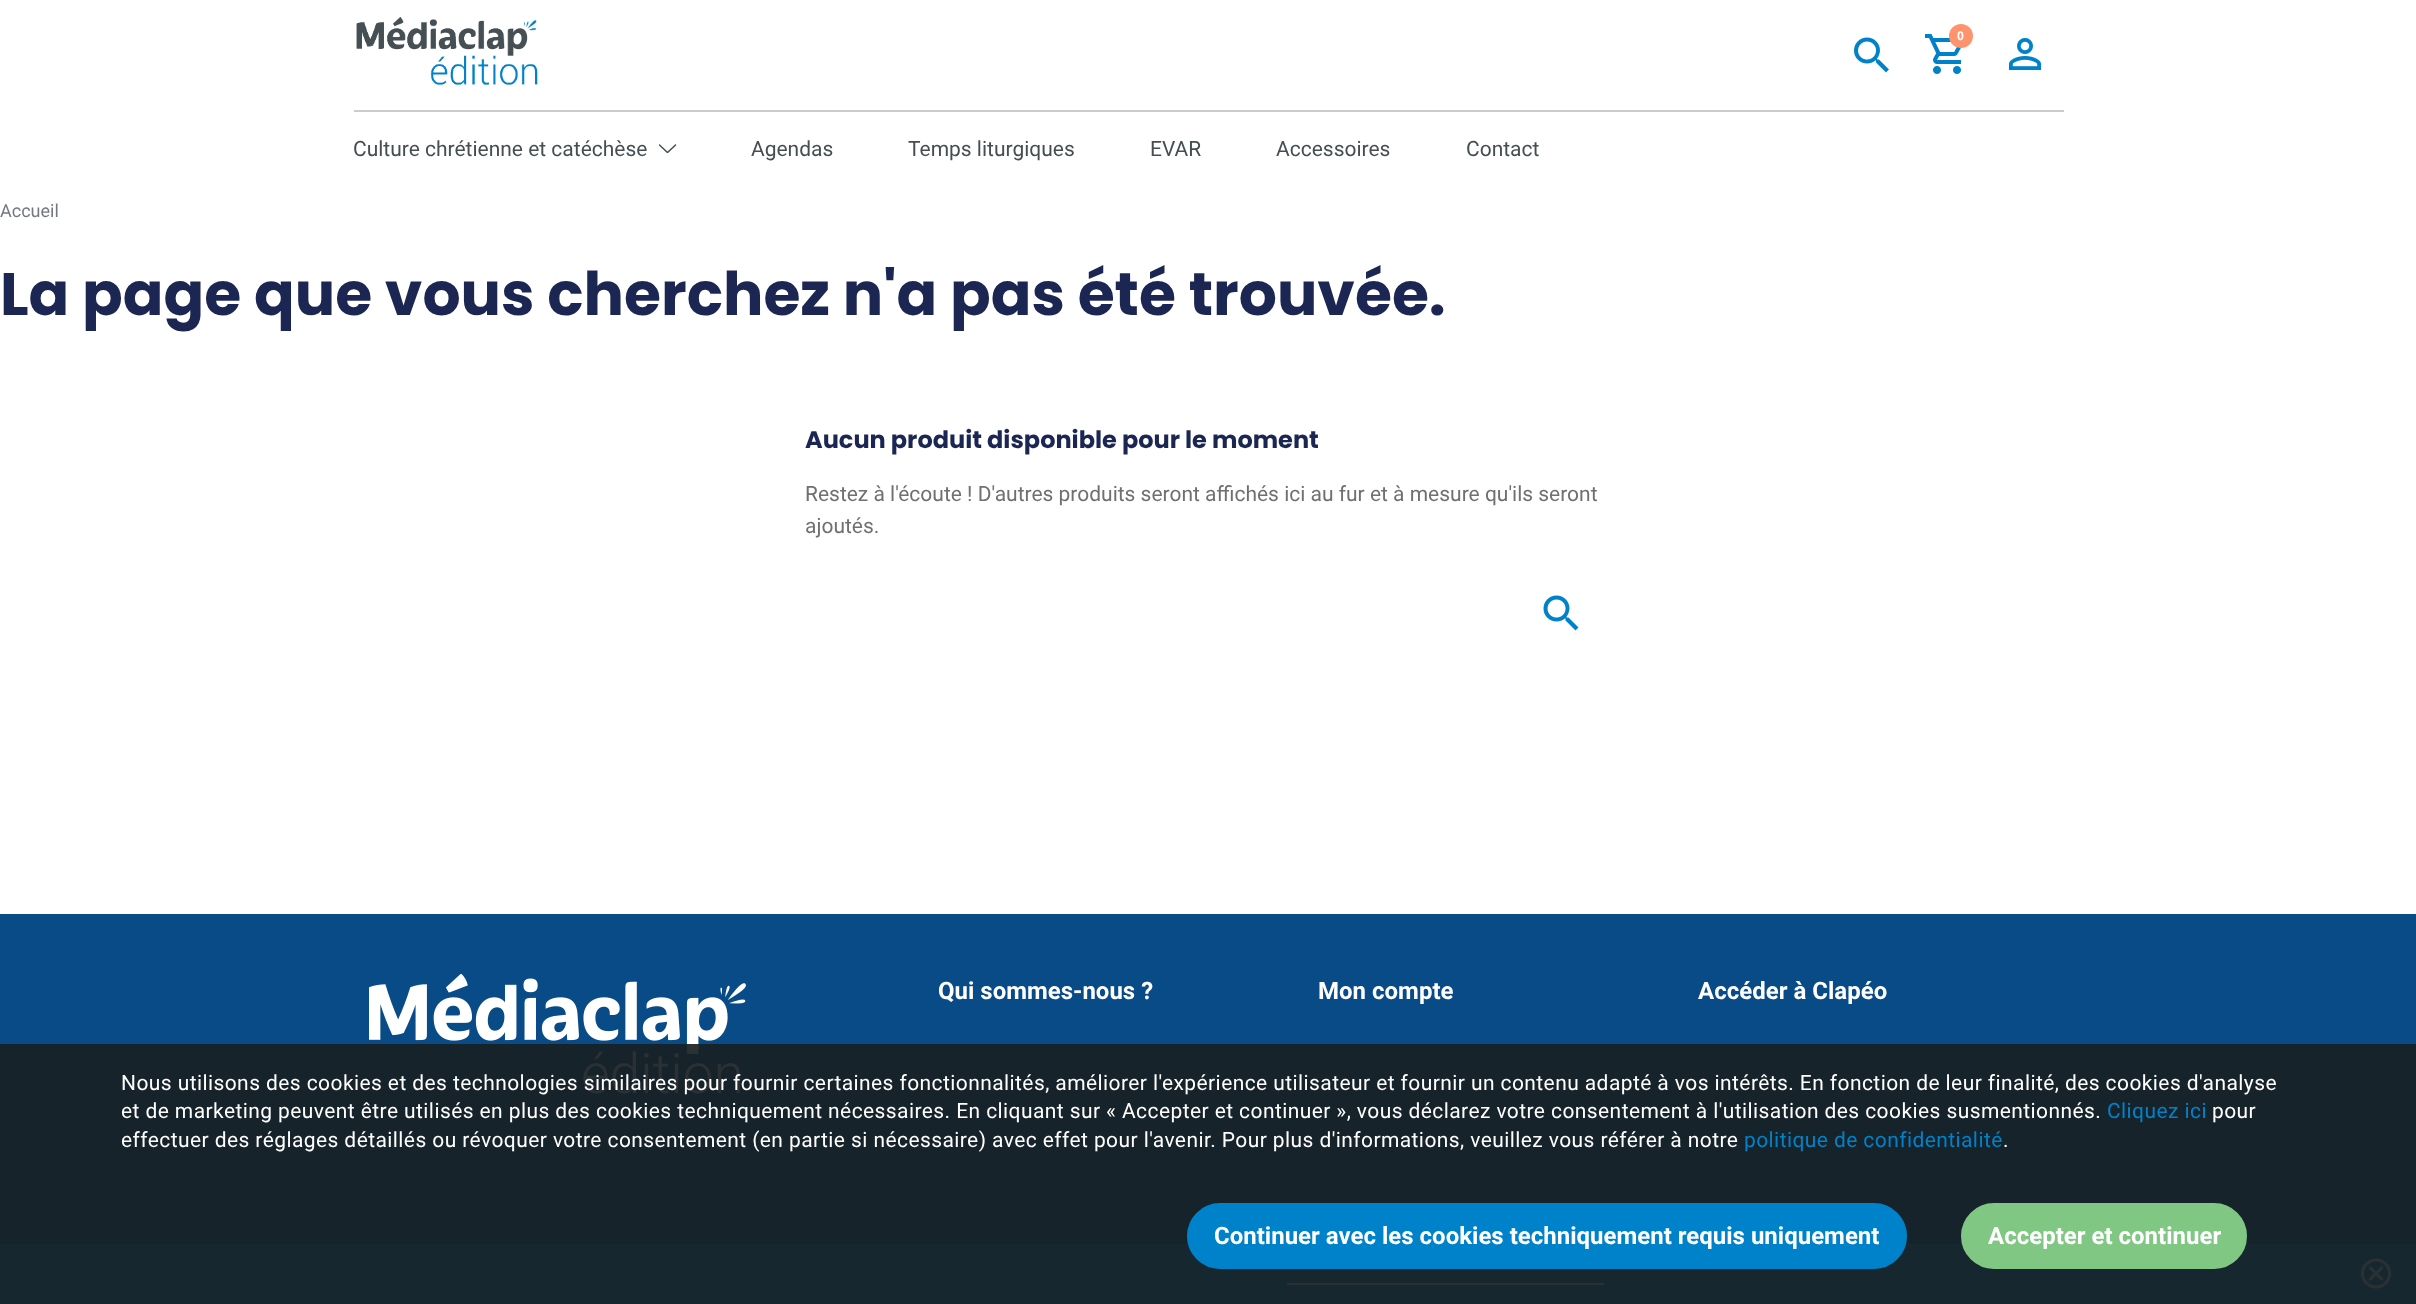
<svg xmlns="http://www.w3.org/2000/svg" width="2416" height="1304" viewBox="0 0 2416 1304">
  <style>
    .t1 { font: bold 12px Roboto; fill: #fff; }
    .t2 { font: 21px Roboto; fill: #454f53; }
    .t3 { font: 18px Roboto; fill: #747981; }
    .t4 { font: bold 60px Poppins; fill: #1c2653; }
    .t5 { font: bold 24px Poppins; fill: #1c2653; }
    .t6 { font: 21px Roboto; fill: #707070; }
    .t7 { font: bold 24px Roboto; fill: #fff; }
    .t8 { font: 21px Roboto; letter-spacing: 0.42px; fill: #fff; }
    .t9 { font: 21px Roboto; letter-spacing: 0.42px; fill: #0082ca; }
  </style>
  <defs>
    <clipPath id="clip1"><rect x="659" y="144" width="18" height="9"/></clipPath>
  </defs>
  <rect width="100%" height="100%" fill="#fff"/>
  <image x="356" y="16" width="182" height="69" href="images/1.png"/>
  <image x="1925" y="34" width="37" height="40" href="images/2.png"/>
  <circle cx="1961" cy="36" r="12" fill="#ff936e"/>
  <text x="1957" y="40" class="t1">0</text>
  <image x="1854" y="37" width="35" height="36" href="images/3.png"/>
  <image x="2008" y="38" width="34" height="32" href="images/4.png"/>
  <rect x="354" y="110" width="1710" height="2" fill="#ccc"/>
  <text x="353" y="156" class="t2">Culture chrétienne et catéchèse</text>
  <g clip-path="url(#clip1)">
    <path d="M659.5 145L667.5 152.5L675.5 145" fill="none" stroke="#454f53" stroke-width="1.5" stroke-linecap="round" stroke-linejoin="round"/>
  </g>
  <text x="751" y="156" class="t2">Agendas</text>
  <text x="908" y="156" class="t2">Temps liturgiques</text>
  <text x="1150" y="156" class="t2">EVAR</text>
  <text x="1276" y="156" class="t2">Accessoires</text>
  <text x="1466" y="156" class="t2">Contact</text>
  <text x="0" y="217" class="t3">Accueil</text>
  <text x="0" y="315" class="t4">La page que vous cherchez n'a pas été trouvée.</text>
  <text x="805" y="448" class="t5">Aucun produit disponible pour le moment</text>
  <text x="805" y="501" class="t6">Restez à l'écoute ! D'autres produits seront affichés ici au fur et à mesure qu'ils seront</text>
  <text x="805" y="533" class="t6">ajoutés.</text>
  <image x="1543" y="595" width="36" height="36" href="images/5.png"/>
  <rect x="0" y="914" width="2416" height="330" fill="#084b87"/>
  <image x="369" y="974" width="377" height="120" href="images/6.png"/>
  <text x="938" y="999" class="t7">Qui sommes-nous ?</text>
  <text x="1318" y="999" class="t7">Mon compte</text>
  <text x="1698" y="999" class="t7">Accéder à Clapéo</text>
  <rect x="0" y="1244" width="2416" height="60" fill="#0082ca"/>
  <rect x="1287" y="1283" width="317" height="2" fill="#fff"/>
  <image x="2361" y="1258" width="30" height="31" href="images/7.png"/>
  <rect x="0" y="1044" width="2416" height="260" fill="#191f22eb"/>
  <text x="121" y="1090" class="t8">Nous utilisons des cookies et des technologies similaires pour fournir certaines fonctionnalités, améliorer l'expérience utilisateur et fournir un contenu adapté à vos intérêts. En fonction de leur finalité, des cookies d'analyse</text>
  <text x="121" y="1118" class="t8">et de marketing peuvent être utilisés en plus des cookies techniquement nécessaires. En cliquant sur « Accepter et continuer », vous déclarez votre consentement à l'utilisation des cookies susmentionnés.</text>
  <text x="2107" y="1118" class="t9">Cliquez ici</text>
  <text x="2212" y="1118" class="t8">pour</text>
  <text x="121" y="1147" class="t8">effectuer des réglages détaillés ou révoquer votre consentement (en partie si nécessaire) avec effet pour l'avenir. Pour plus d'informations, veuillez vous référer à notre</text>
  <text x="1744" y="1147" class="t9">politique de confidentialité</text>
  <text x="2003" y="1147" class="t8">.</text>
  <rect x="1188.5" y="1204.5" width="717" height="63" rx="31.5" fill="#0082ca" stroke="#0082ca" stroke-width="3"/>
  <text x="1214" y="1244" class="t7">Continuer avec les cookies techniquement requis uniquement</text>
  <rect x="1962.5" y="1204.5" width="283" height="63" rx="31.5" fill="#81c784" stroke="#81c784" stroke-width="3"/>
  <text x="1988" y="1244" class="t7">Accepter et continuer</text>
</svg>
